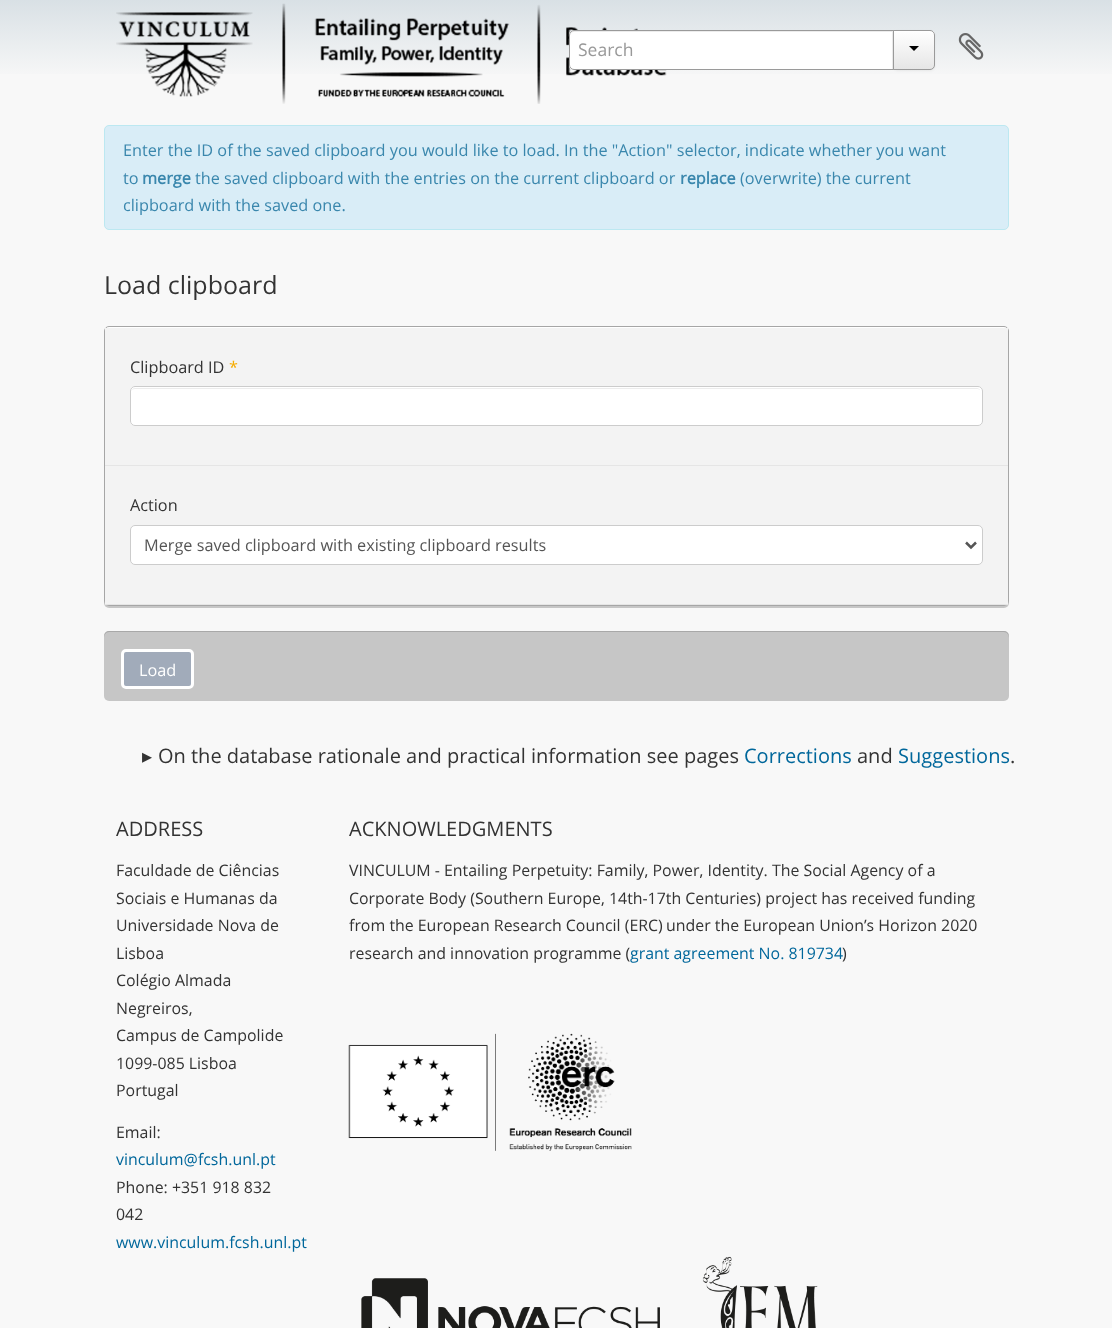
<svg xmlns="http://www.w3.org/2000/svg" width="1112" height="1328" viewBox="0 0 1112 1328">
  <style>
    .t1 { font: 17.5px Open Sans; fill: #999; }
    .t2 { font: 16.25px Open Sans; fill: #3a87ad; }
    .t3 { font: bold 16.25px Open Sans; fill: #3a87ad; }
    .t4 { font: 25px Open Sans; fill: #333; }
    .t5 { font: 16.25px Open Sans; fill: #333; }
    .t6 { font: 16.25px Open Sans; fill: #f6ac00; }
    .t7 { font: 16.25px Open Sans; fill: #555; }
    .t8 { font: 16.25px Open Sans; fill: #fff; }
    .t9 { font: 20px DejaVu Sans; fill: #333; }
    .t10 { font: 20px Open Sans; fill: #333; }
    .t11 { font: 20px Open Sans; fill: #00679b; }
    .t12 { font: 15.9px Open Sans; fill: #333; }
    .t13 { font: 15.9px Open Sans; fill: #00679b; }
  </style>
  <defs>
    <linearGradient id="g1" gradientUnits="userSpaceOnUse" x1="556" y1="-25" x2="556" y2="125"><stop offset="0" stop-color="#cfd9df"/><stop offset="0.7" stop-color="#f8f8f8"/></linearGradient>
    <clipPath id="clip1"><path d="M893 30H930C933 30 935 32 935 35V65C935 68 933 70 930 70H893Z"/></clipPath>
    <linearGradient id="g2" gradientUnits="userSpaceOnUse" x1="914" y1="31" x2="914" y2="69"><stop offset="0" stop-color="#fff"/><stop offset="1" stop-color="#e6e6e6"/></linearGradient>
  </defs>
  <rect width="100%" height="100%" fill="#f8f8f8"/>
  <rect x="0" y="0" width="1112" height="74" fill="url(#g1)"/>
  <image x="116" y="3" width="551" height="101" href="images/1.png"/>
  <path d="M574 30H894V70H574C571 70 569 68 569 65V35C569 32 571 30 574 30Z" fill="#fff"/>
  <path d="M574 32H892V69H893V31H574C572 31 570 33 570 35V36C570 34 572 32 574 32Z" fill="#ececec"/>
  <path d="M574 30.5H893.5V69.5H574C571.5 69.5 569.5 67.5 569.5 65V35C569.5 32.5 571.5 30.5 574 30.5Z" fill="none" stroke="#9a9a9a"/>
  <text x="578" y="56" class="t1">Search</text>
  <rect x="893" y="31" width="42" height="40" rx="5" fill="#0000000d" filter="blur(1px)"/>
  <g clip-path="url(#clip1)">
    <rect x="894" y="31" width="41" height="38" fill="url(#g2)"/>
  </g>
  <path d="M893.5 30.5H930C932.5 30.5 934.5 32.5 934.5 35V65C934.5 67.5 932.5 69.5 930 69.5H893.5Z" fill="none" stroke="#9a9a9a"/>
  <path d="M909 46H919L914 51Z" fill="#000"/>
  <image x="958" y="33" width="26" height="27" href="images/2.png"/>
  <rect x="104.5" y="125.5" width="904" height="104" rx="4.5" fill="#d9edf7" stroke="#bce8f1"/>
  <text x="123" y="156" class="t2">Enter the ID of the saved clipboard you would like to load. In the "Action" selector, indicate whether you want</text>
  <text x="123" y="184" class="t2">to</text>
  <text x="142" y="184" class="t3">merge</text>
  <text x="195" y="184" class="t2">the saved clipboard with the entries on the current clipboard or</text>
  <text x="680" y="184" class="t3">replace</text>
  <text x="740" y="184" class="t2">(overwrite) the current</text>
  <text x="123" y="211" class="t2">clipboard with the saved one.</text>
  <text x="104" y="294" class="t4">Load clipboard</text>
  <rect x="104" y="328" width="905" height="280" rx="5" fill="#00000033" filter="blur(0.5px)"/>
  <rect x="104.5" y="326.5" width="904" height="279" rx="4.5" fill="#fff" stroke="#a6a6a6"/>
  <rect x="105" y="328" width="903" height="137" fill="#f3f3f3"/>
  <rect x="105" y="465" width="903" height="1" fill="#e5e5e5"/>
  <text x="130" y="373" class="t5">Clipboard ID</text>
  <text x="229" y="373" class="t6">*</text>
  <rect x="130" y="386" width="853" height="40" rx="5" fill="#fff"/>
  <path d="M135 389H978L980 390C980 389 978 388 977 388H135C133 388 131 390 131 392C131 390 133 389 135 389Z" fill="#ececec"/>
  <rect x="130.5" y="386.5" width="852" height="39" rx="4.5" fill="none" stroke="#ccc"/>
  <rect x="105" y="466" width="903" height="138" fill="#f3f3f3"/>
  <rect x="105" y="604" width="903" height="1" fill="#e5e5e5"/>
  <text x="130" y="511" class="t5">Action</text>
  <rect x="130.5" y="525.5" width="852" height="39" rx="4.5" fill="#fff" stroke="#ccc"/>
  <path d="M966 542.5L971 547.5L976 542.5" fill="none" stroke="#555" stroke-width="2.5"/>
  <text x="144" y="551" class="t7">Merge saved clipboard with existing clipboard results</text>
  <rect x="104" y="631" width="905" height="70" rx="5" fill="#c6c6c6"/>
  <path d="M109 632H1004C1007 632 1009 635 1009 638V636C1009 633 1007 631 1004 631H109C106 631 104 633 104 636V638C104 635 106 632 109 632Z" fill="#00000026"/>
  <rect x="122.5" y="650.5" width="70" height="37" rx="3.5" fill="#a1abba" stroke="#fff" stroke-width="3"/>
  <text x="139" y="676" class="t8">Load</text>
  <text x="142" y="763" class="t9">▸</text>
  <text x="158" y="763" class="t10">On the database rationale and practical information see pages</text>
  <text x="744" y="763" class="t11">Corrections</text>
  <text x="857" y="763" class="t10">and</text>
  <text x="898" y="763" class="t11">Suggestions</text>
  <text x="1010" y="763" class="t10">.</text>
  <text x="116" y="836" class="t10">ADDRESS</text>
  <text x="116" y="876" class="t12">Faculdade de Ciências</text>
  <text x="116" y="904" class="t12">Sociais e Humanas da</text>
  <text x="116" y="931" class="t12">Universidade Nova de</text>
  <text x="116" y="959" class="t12">Lisboa</text>
  <text x="116" y="986" class="t12">Colégio Almada</text>
  <text x="116" y="1014" class="t12">Negreiros,</text>
  <text x="116" y="1041" class="t12">Campus de Campolide</text>
  <text x="116" y="1069" class="t12">1099-085 Lisboa</text>
  <text x="116" y="1096" class="t12">Portugal</text>
  <text x="116" y="1138" class="t12">Email:</text>
  <text x="116" y="1165" class="t13">vinculum@fcsh.unl.pt</text>
  <text x="116" y="1193" class="t12">Phone: +351 918 832</text>
  <text x="116" y="1220" class="t12">042</text>
  <text x="116" y="1248" class="t13">www.vinculum.fcsh.unl.pt</text>
  <text x="349" y="836" class="t10">ACKNOWLEDGMENTS</text>
  <text x="349" y="876" class="t12">VINCULUM - Entailing Perpetuity: Family, Power, Identity. The Social Agency of a</text>
  <text x="349" y="904" class="t12">Corporate Body (Southern Europe, 14th-17th Centuries) project has received funding</text>
  <text x="349" y="931" class="t12">from the European Research Council (ERC)</text>
  <text x="666" y="931" class="t12">under the European Union’s Horizon 2020</text>
  <text x="349" y="959" class="t12">research and innovation programme (</text>
  <text x="630" y="959" class="t13">grant agreement No. 819734</text>
  <text x="842" y="959" class="t12">)</text>
  <image x="348" y="1033" width="284" height="118" href="images/3.png"/>
  <image x="361" y="1278" width="299" height="50" href="images/4.png"/>
  <image x="702" y="1256" width="116" height="72" href="images/5.png"/>
</svg>
